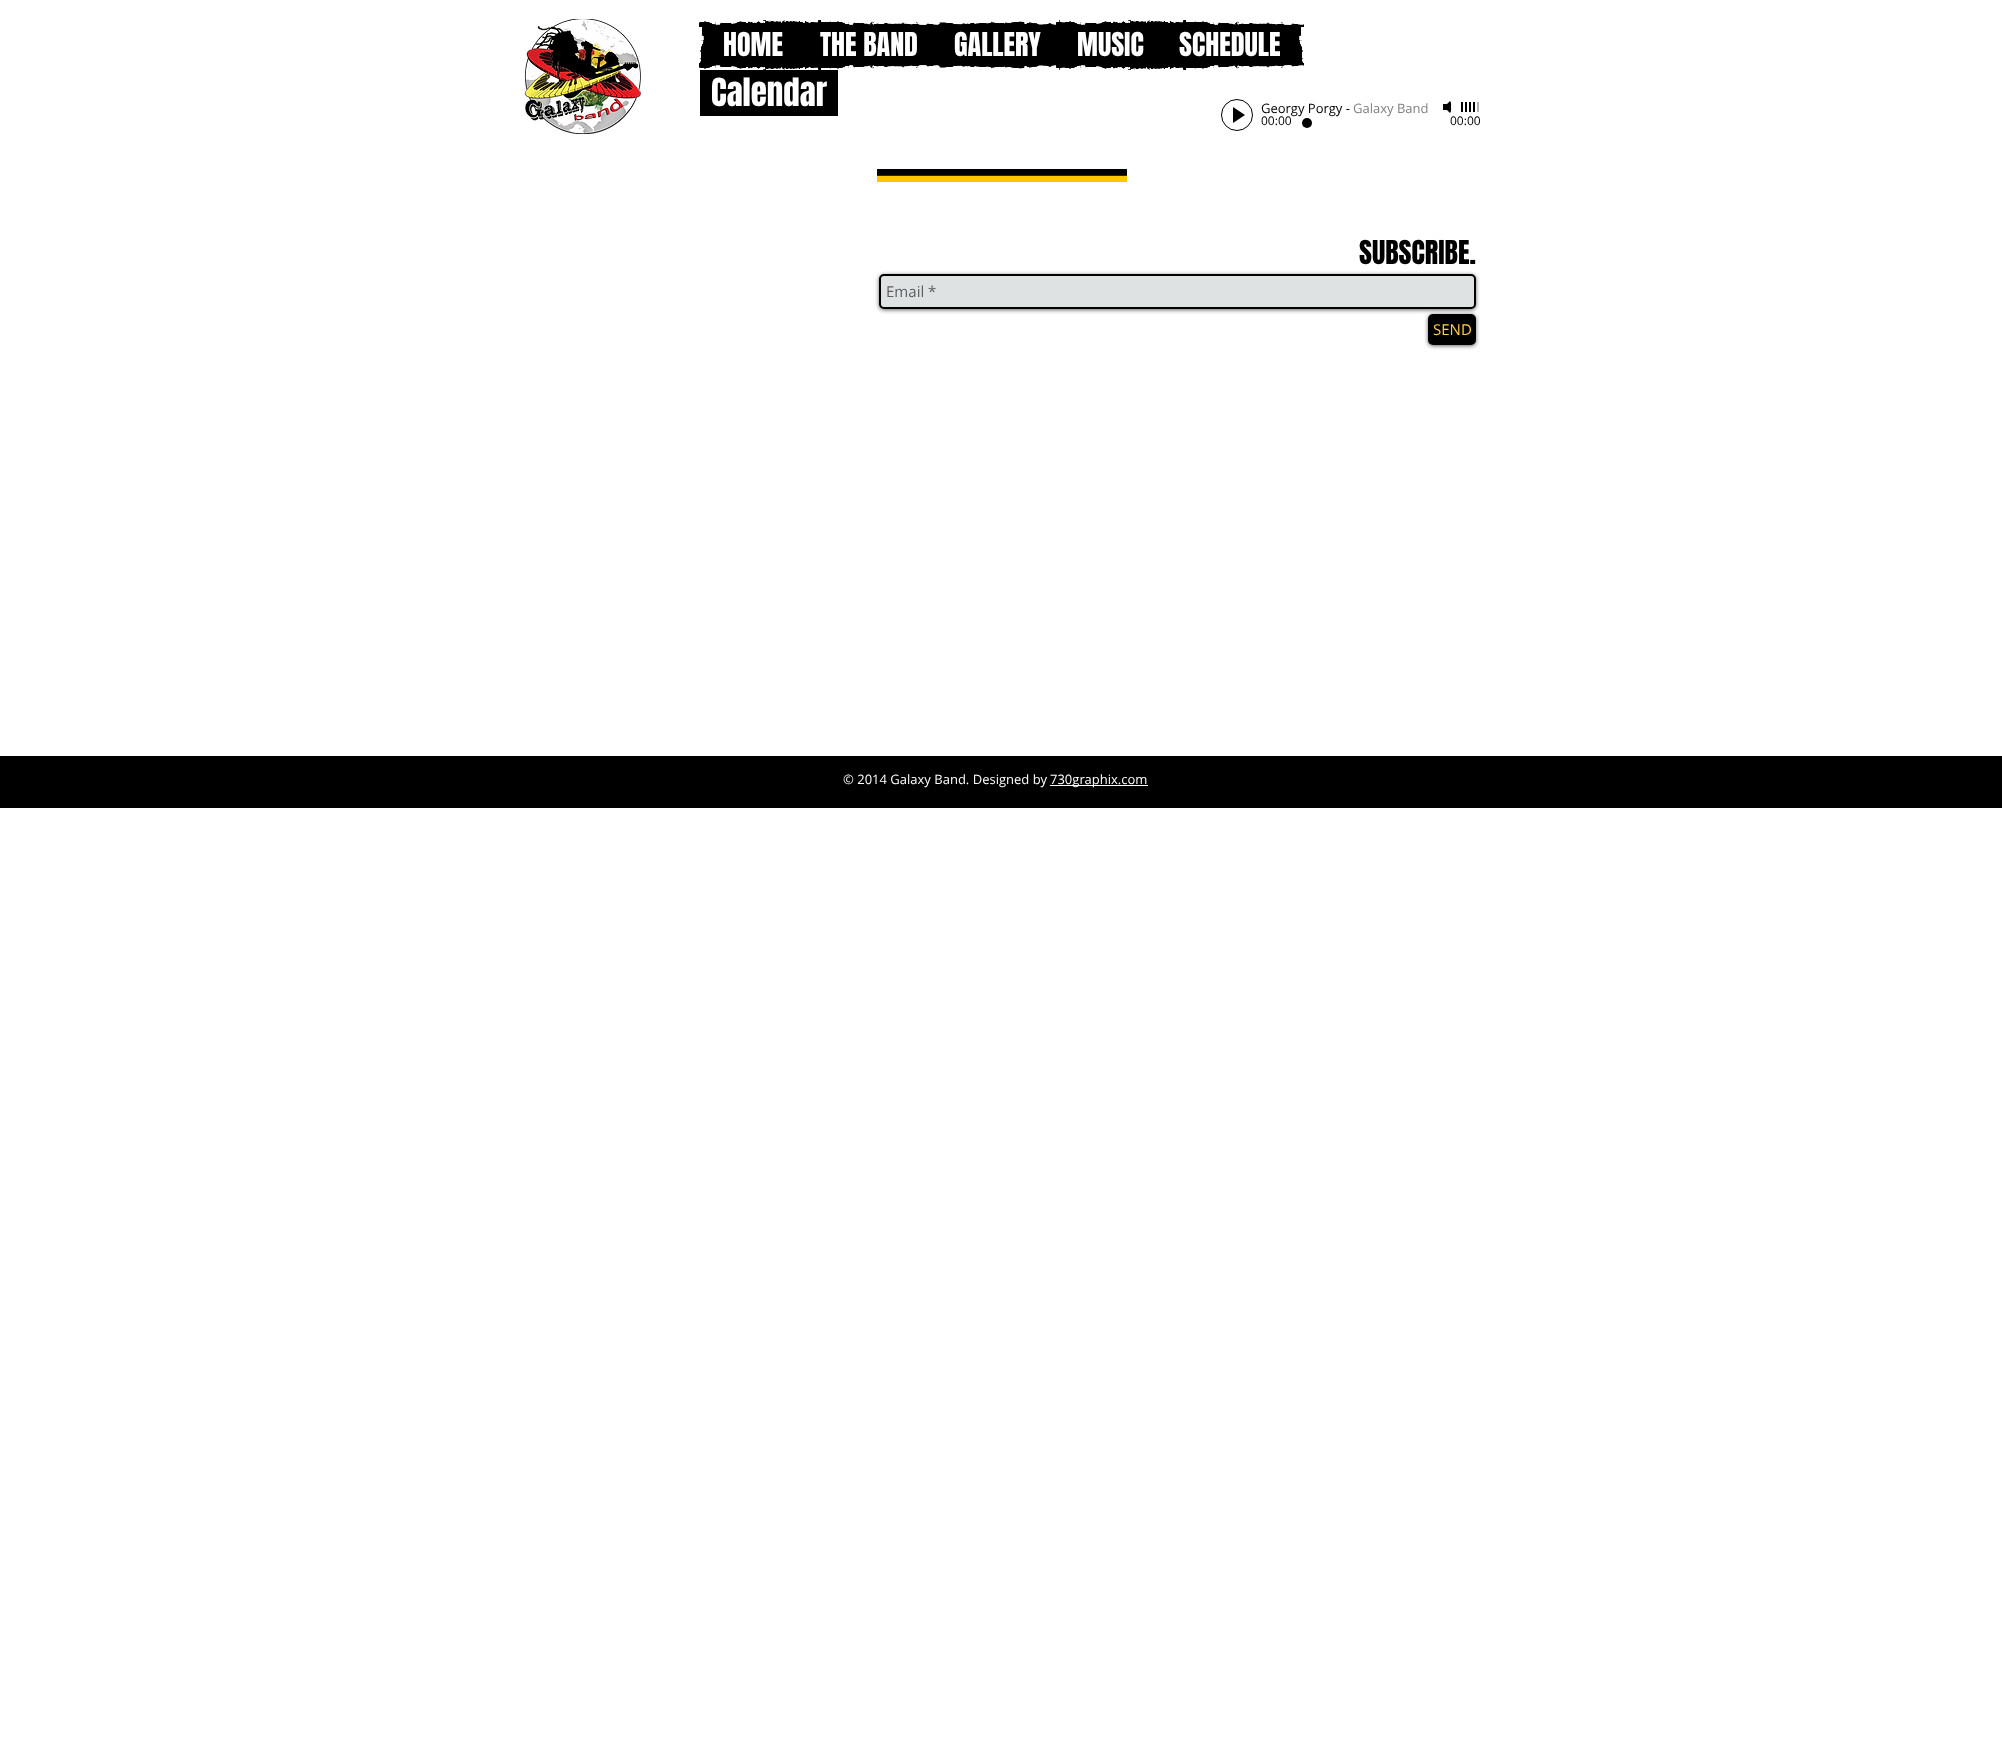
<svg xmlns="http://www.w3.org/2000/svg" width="2002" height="1751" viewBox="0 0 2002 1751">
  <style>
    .t1 { font: 28px Anton; fill: #fff; }
    .t2 { font: 33px Anton; fill: #fff; }
    .t3 { font: 13px Open Sans; fill: #000; }
    .t4 { font: 13px Open Sans; fill: #808080; }
    .t5 { font: 12px Open Sans; fill: #000; }
    .t6 { font: 28px Anton; fill: #000; }
    .t7 { font: 15px Open Sans; fill: #595f62; }
    .t8 { font: 15px Open Sans; fill: #ffce49; }
    .t9 { font: 13px Open Sans; fill: #fff; }
  </style>
  <rect width="100%" height="100%" fill="#fff"/>
  <image x="524" y="19" width="118" height="115" href="images/1.png"/>
  <image x="699" y="20" width="605" height="7" href="images/2.png"/>
  <image x="699" y="27" width="7" height="36" href="images/3.png"/>
  <rect x="706" y="27" width="591" height="36" fill="#000"/>
  <text x="723" y="56" class="t1">HOME</text>
  <text x="820" y="56" class="t1">THE BAND</text>
  <text x="954" y="56" class="t1">GALLERY</text>
  <text x="1077" y="56" class="t1">MUSIC</text>
  <text x="1179" y="56" class="t1">SCHEDULE</text>
  <image x="1297" y="27" width="7" height="36" href="images/4.png"/>
  <image x="699" y="63" width="605" height="7" href="images/5.png"/>
  <rect x="700" y="70" width="138" height="46" fill="#000"/>
  <text x="711" y="106" class="t2">Calendar</text>
  <circle cx="1237" cy="115" r="15.5" fill="none" stroke="#000"/>
  <path d="M1233 123V107L1245 115Z" fill="#000"/>
  <text x="1261" y="113" class="t3">Georgy Porgy -</text>
  <text x="1353" y="113" class="t4">Galaxy Band</text>
  <path d="M1444 107L1450 113C1451.5 111.5 1451 109 1451 107C1451 105 1451.5 102.5 1450 101Z" fill="#000"/>
  <rect x="1443" y="104" width="4" height="6" fill="#000"/>
  <rect x="1461" y="102" width="2" height="10" fill="#000"/>
  <rect x="1465" y="102" width="2" height="10" fill="#000"/>
  <rect x="1469" y="102" width="2" height="10" fill="#000"/>
  <rect x="1473" y="102" width="2" height="10" fill="#000"/>
  <rect x="1477" y="102" width="2" height="10" fill="#b3b3b3"/>
  <text x="1261" y="125" class="t5">00:00</text>
  <text x="1450" y="125" class="t5">00:00</text>
  <circle cx="1307" cy="123" r="5" fill="#000"/>
  <image x="877" y="169" width="250" height="13" href="images/6.png"/>
  <text x="1359" y="264" class="t6">SUBSCRIBE.</text>
  <rect x="879" y="275" width="597" height="35" rx="5" fill="#00000099" filter="blur(2px)"/>
  <rect x="880" y="275" width="595" height="33" rx="4" fill="#dfe2e2" stroke="#000" stroke-width="2"/>
  <text x="886" y="297" class="t7">Email *</text>
  <rect x="1428" y="315" width="48" height="31" rx="5" fill="#00000099" filter="blur(2px)"/>
  <rect x="1428" y="314" width="48" height="31" rx="5" fill="#000"/>
  <text x="1433" y="335" class="t8">SEND</text>
  <rect x="0" y="756" width="2002" height="52" fill="#000"/>
  <text x="843" y="784" class="t9">© 2014 Galaxy Band. Designed by</text>
  <rect x="1050" y="785" width="98" height="1" fill="#fff"/>
  <text x="1050" y="784" class="t9">730graphix.com</text>
</svg>
